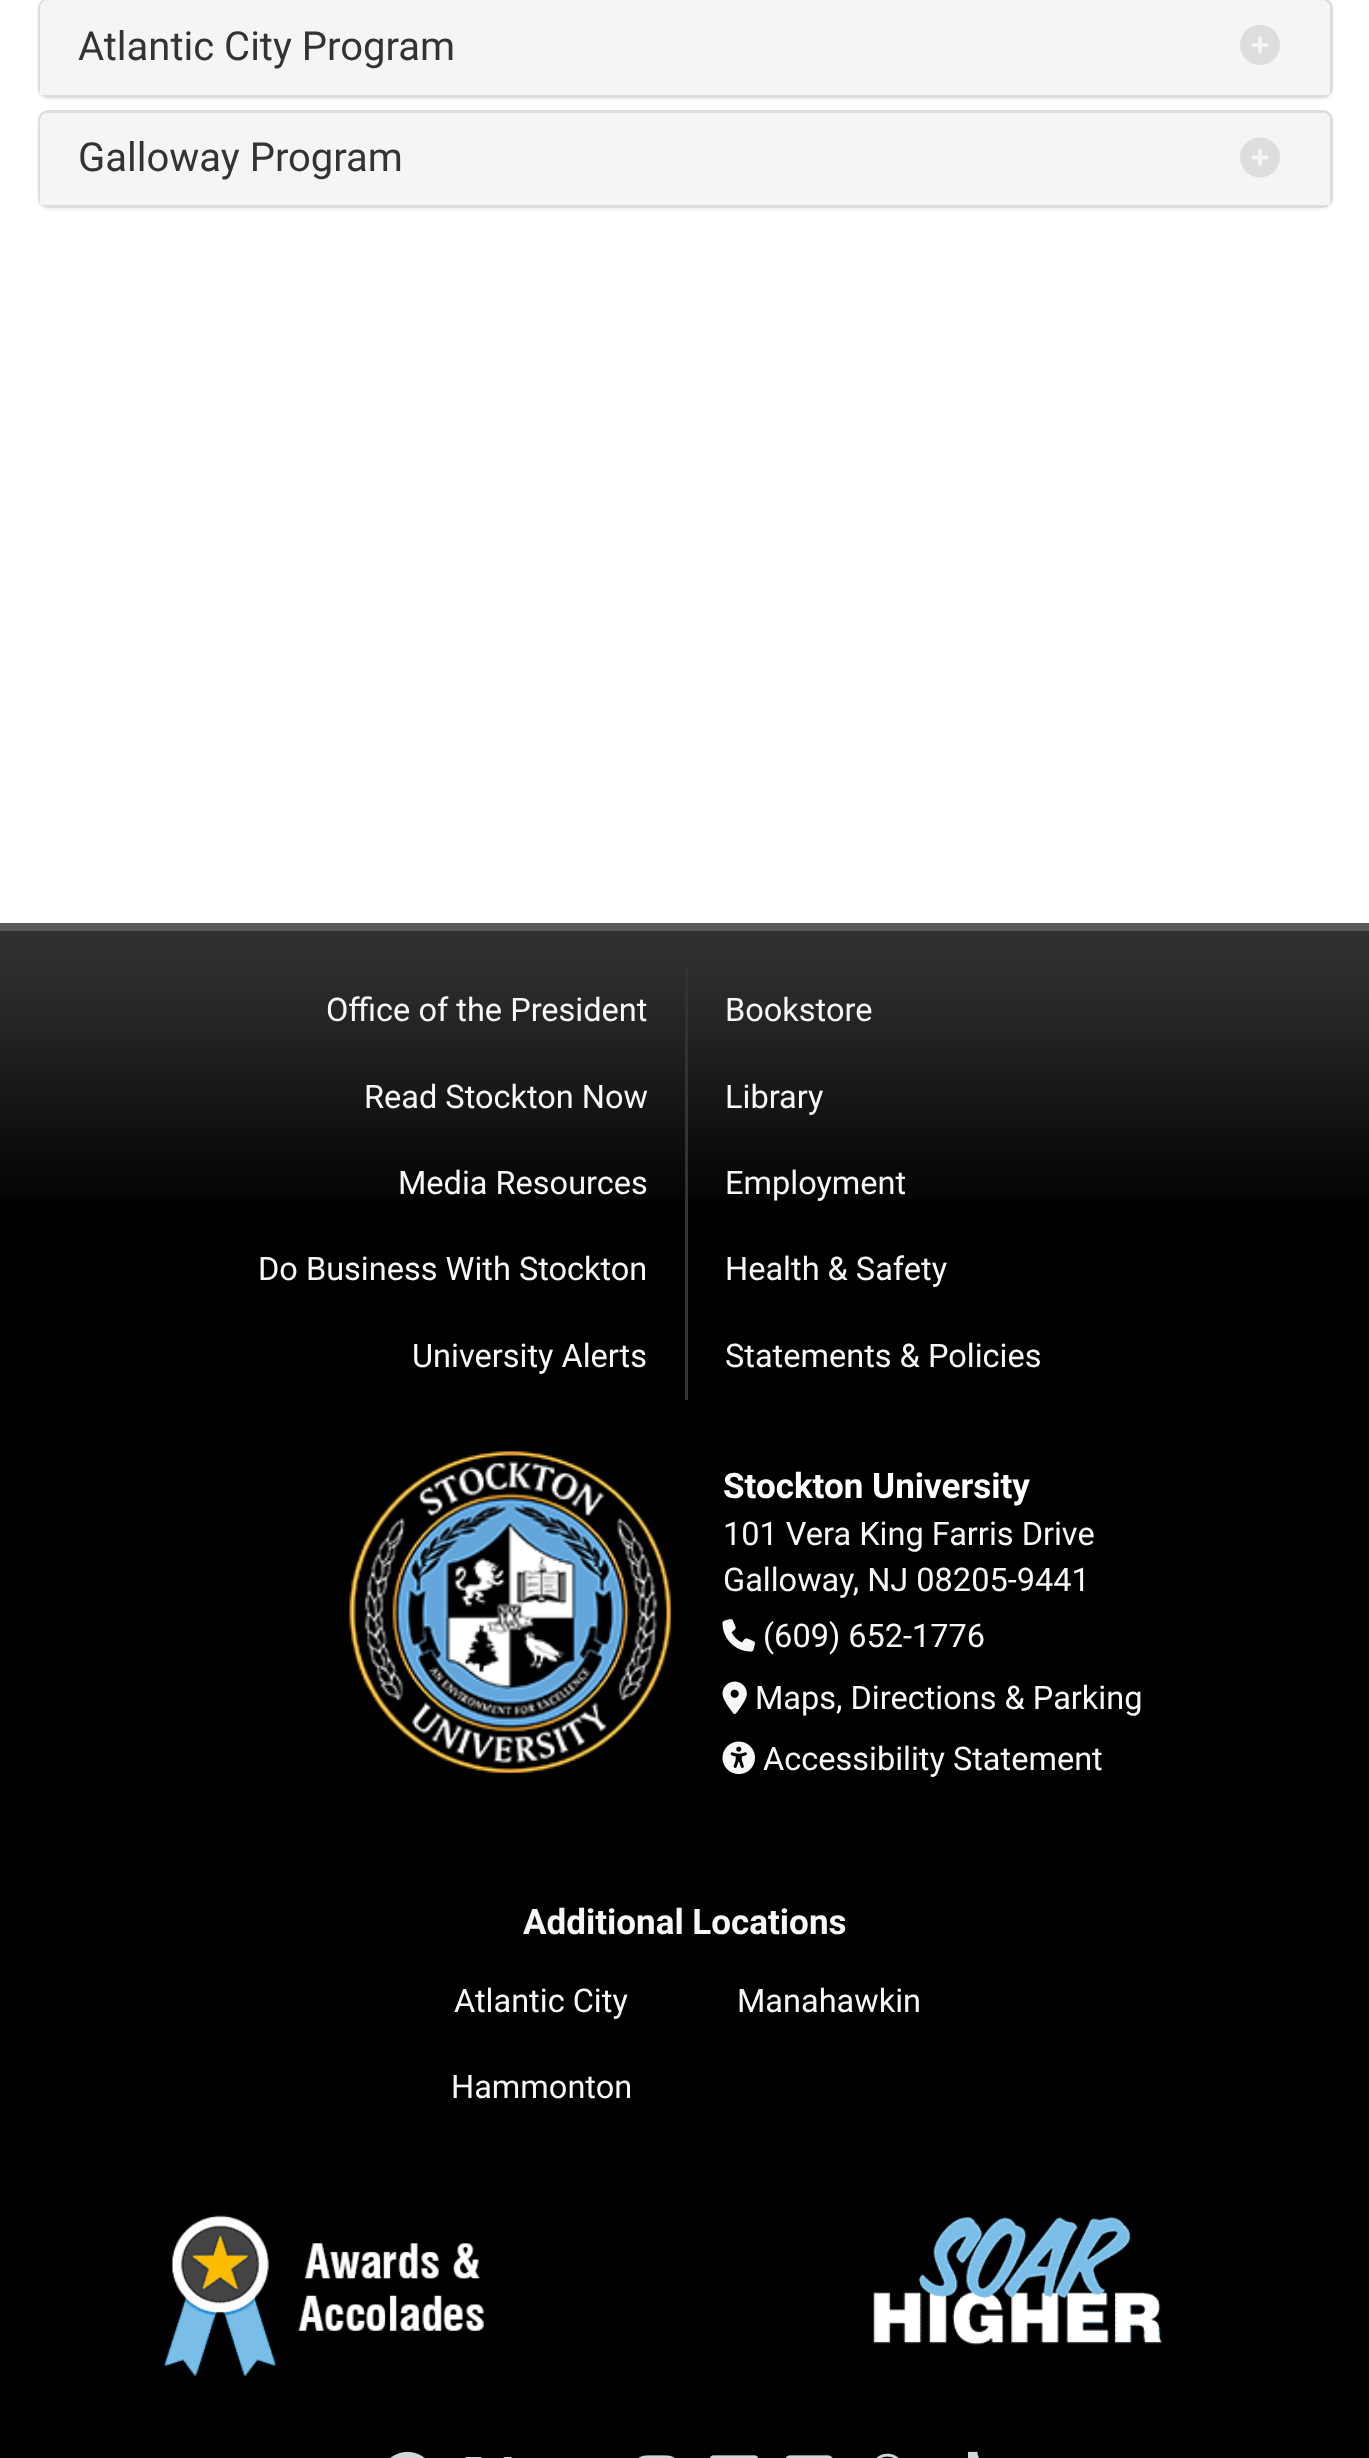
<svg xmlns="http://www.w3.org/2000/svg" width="1369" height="2458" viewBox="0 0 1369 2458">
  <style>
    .t1 { font: 40px Roboto; fill: #333; }
    .t2 { font: 32.5px Roboto; fill: #f7f7f7; }
    .t3 { font: bold 35px Roboto; fill: #fff; }
    .t4 { font: bold 35px Roboto; fill: #f7f7f7; }
  </style>
  <rect width="100%" height="100%" fill="#000"/>
  <rect x="0" y="0" width="1369" height="923" fill="#fff"/>
  <rect x="38" y="0" width="1295" height="100" rx="10" fill="#0000000d" filter="blur(1px)"/>
  <rect x="39.5" y="-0.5" width="1292" height="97" rx="8.5" fill="none" stroke="#ddd" stroke-width="3"/>
  <path d="M48 0H1322C1326.5 0 1330 3.5 1330 8V95H40V8C40 3.5 43.5 0 48 0Z" fill="#f5f5f5"/>
  <text x="78" y="60" class="t1">Atlantic City Program</text>
  <image x="1240" y="25" width="40" height="40" href="images/1.png"/>
  <rect x="38" y="113" width="1295" height="97" rx="10" fill="#0000000d" filter="blur(1px)"/>
  <rect x="39.5" y="111.5" width="1292" height="95" rx="8.5" fill="#fff" stroke="#ddd" stroke-width="3"/>
  <path d="M48 113H1322C1326.5 113 1330 116.5 1330 121V205H40V121C40 116.5 43.5 113 48 113Z" fill="#f5f5f5"/>
  <text x="78" y="171" class="t1">Galloway Program</text>
  <image x="1240" y="137" width="40" height="41" href="images/2.png"/>
  <image x="0" y="931" width="1369" height="268" href="images/3.png"/>
  <rect x="0" y="923" width="1369" height="8" fill="#5a5a5a"/>
  <text x="326" y="1021" class="t2">Office of the President</text>
  <text x="364" y="1108" class="t2">Read Stockton Now</text>
  <text x="398" y="1194" class="t2">Media Resources</text>
  <text x="258" y="1280" class="t2">Do Business With Stockton</text>
  <text x="412" y="1367" class="t2">University Alerts</text>
  <rect x="685" y="968" width="3" height="432" fill="#323232"/>
  <text x="725" y="1021" class="t2">Bookstore</text>
  <text x="725" y="1108" class="t2">Library</text>
  <text x="725" y="1194" class="t2">Employment</text>
  <text x="725" y="1280" class="t2">Health &amp; Safety</text>
  <text x="725" y="1367" class="t2">Statements &amp; Policies</text>
  <image x="349" y="1451" width="323" height="323" href="images/4.png"/>
  <text x="723" y="1498" class="t3">Stockton University</text>
  <text x="723" y="1545" class="t2">101 Vera King Farris Drive</text>
  <text x="723" y="1591" class="t2">Galloway, NJ 08205-9441</text>
  <image x="722" y="1619" width="33" height="33" href="images/5.png"/>
  <text x="763" y="1647" class="t2">(609) 652-1776</text>
  <image x="722" y="1681" width="25" height="33" href="images/6.png"/>
  <text x="755" y="1709" class="t2">Maps, Directions &amp; Parking</text>
  <image x="722" y="1741" width="33" height="34" href="images/7.png"/>
  <text x="763" y="1770" class="t2">Accessibility Statement</text>
  <text x="523" y="1934" class="t4">Additional Locations</text>
  <text x="454" y="2012" class="t2">Atlantic City</text>
  <text x="737" y="2012" class="t2">Manahawkin</text>
  <text x="451" y="2098" class="t2">Hammonton</text>
  <image x="163" y="2215" width="321" height="161" href="images/8.png"/>
  <image x="873" y="2216" width="289" height="129" href="images/9.png"/>
  <image x="390" y="2451" width="35" height="7" href="images/10.png"/>
  <image x="465" y="2457" width="47" height="1" href="images/11.png"/>
  <image x="638" y="2455" width="37" height="3" href="images/12.png"/>
  <image x="710" y="2455" width="48" height="3" href="images/13.png"/>
  <image x="785" y="2455" width="48" height="3" href="images/14.png"/>
  <image x="876" y="2453" width="23" height="5" href="images/15.png"/>
  <image x="967" y="2451" width="12" height="7" href="images/16.png"/>
</svg>
